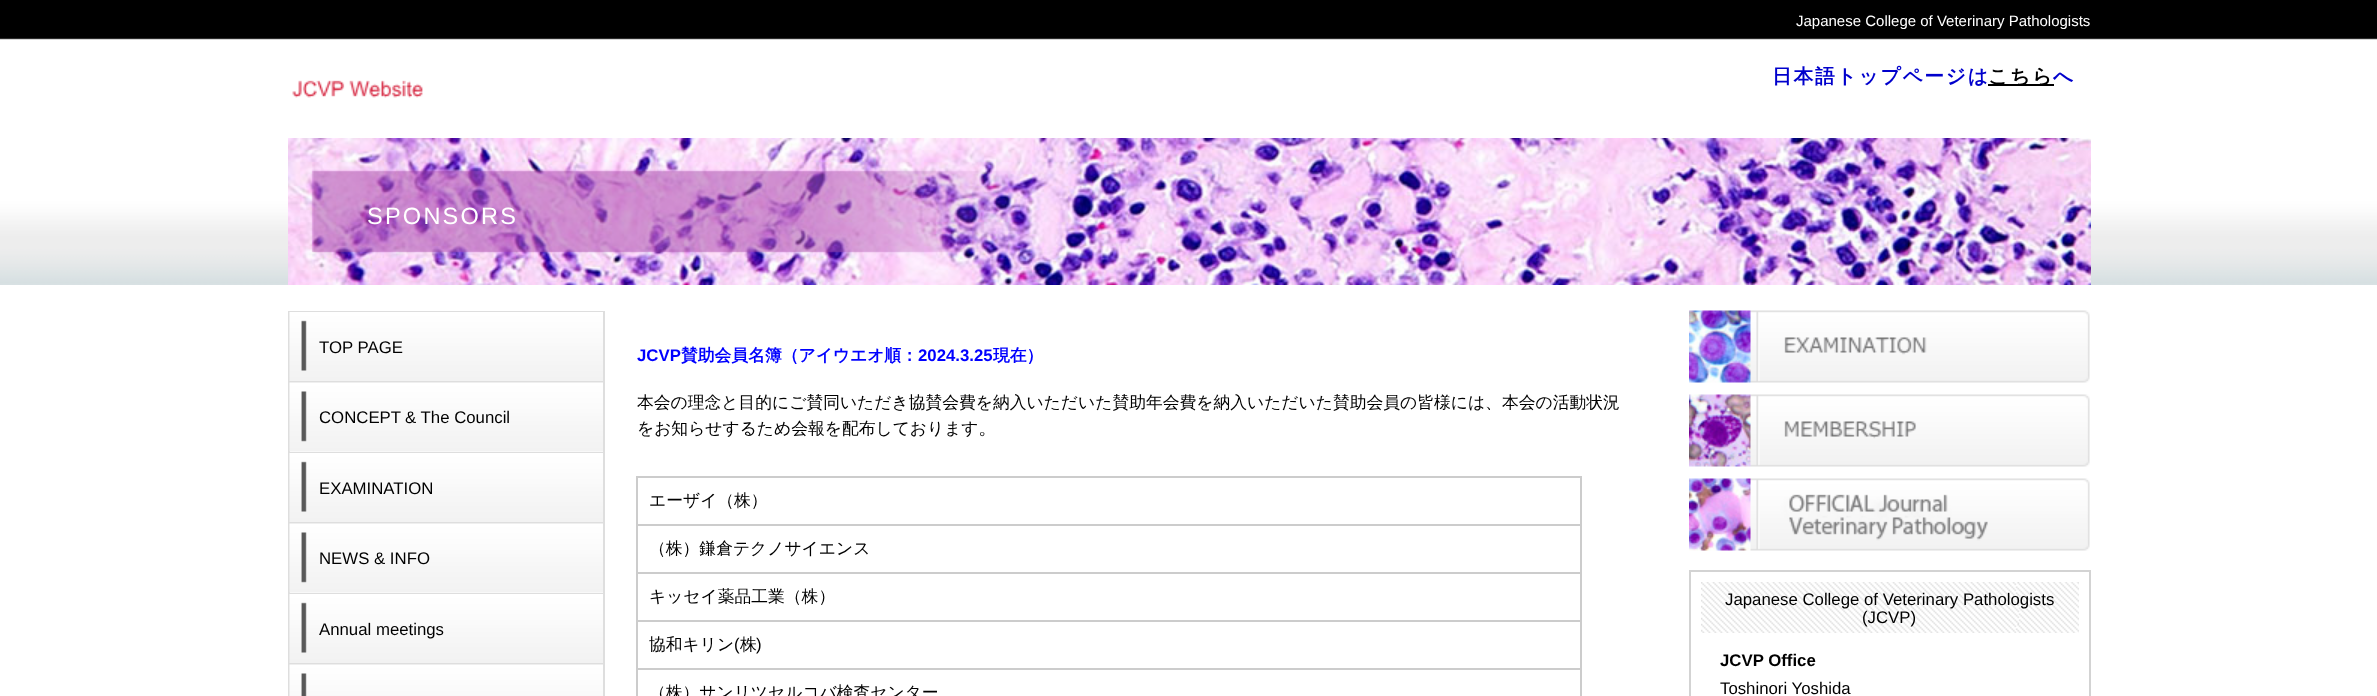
<svg xmlns="http://www.w3.org/2000/svg" width="2377" height="696" viewBox="0 0 2377 696">
  <style>
    .t1 { font: 15px Liberation Sans; fill: #fff; }
    .t2 { font: bold 19.75px WenQuanYi Zen Hei; letter-spacing: 1.75px; fill: #00c; }
    .t3 { font: bold 19.75px WenQuanYi Zen Hei; letter-spacing: 1.75px; fill: #000; }
    .t4 { font: 23.5px Liberation Sans; letter-spacing: 2.25px; fill: #fff; }
    .t5 { font: bold 16.8px Liberation Sans; fill: #00f; }
    .t6 { font: bold 16.8px WenQuanYi Zen Hei; fill: #00f; }
    .t7 { font: 500 16.8px WenQuanYi Zen Hei; fill: #000; }
    .t8 { font: 500 20px WenQuanYi Zen Hei; fill: #000; }
    .t9 { font: 16.8px Liberation Sans; fill: #000; }
    .t10 { font: bold 16.8px Liberation Sans; fill: #000; }
  </style>
  <rect width="100%" height="100%" fill="#fff"/>
  <image x="0" y="0" width="2377" height="285" href="images/1.png"/>
  <text x="1796" y="26" class="t1">Japanese College of Veterinary Pathologists</text>
  <text x="1772" y="83" class="t2">日本語トップページは</text>
  <rect x="1988" y="84" width="66" height="2" fill="#000"/>
  <text x="1988" y="83" class="t3">こちら</text>
  <text x="2053" y="83" class="t2">へ</text>
  <image x="292" y="80" width="131" height="18" href="images/2.png"/>
  <image x="288" y="138" width="1803" height="147" href="images/3.png"/>
  <text x="367" y="224" class="t4">SPONSORS</text>
  <text x="637" y="361" class="t5">JCVP</text>
  <text x="681" y="361" class="t6">賛助会員名簿（アイウエオ順：</text>
  <text x="918" y="361" class="t5">2024.3.25</text>
  <text x="993" y="361" class="t6">現在）</text>
  <text x="637" y="408" class="t7">本会の理念と目的にご賛同いただき協賛会費を納入いただいた賛助年会費を納入いただいた賛助会員の皆様には、本会の活動状況</text>
  <text x="637" y="434" class="t7">をお知らせするため会報を配布しております</text>
  <text x="978" y="434" class="t8">。</text>
  <rect x="636" y="476" width="945" height="2" fill="#ccc"/>
  <rect x="636" y="476" width="2" height="220" fill="#ccc"/>
  <rect x="1580" y="476" width="2" height="220" fill="#ccc"/>
  <rect x="636" y="524" width="945" height="2" fill="#ccc"/>
  <text x="649" y="506" class="t7">エーザイ（株）</text>
  <rect x="636" y="572" width="945" height="2" fill="#ccc"/>
  <text x="649" y="554" class="t7">（株）鎌倉テクノサイエンス</text>
  <rect x="636" y="620" width="945" height="2" fill="#ccc"/>
  <text x="649" y="602" class="t7">キッセイ薬品工業（株）</text>
  <rect x="636" y="668" width="945" height="2" fill="#ccc"/>
  <text x="649" y="650" class="t7">協和キリン</text>
  <text x="734" y="650" class="t9">(</text>
  <text x="740" y="650" class="t7">株</text>
  <text x="756" y="650" class="t9">)</text>
  <text x="649" y="698" class="t7">（株）サンリツセルコバ検査センター</text>
  <rect x="289" y="312" width="315" height="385" fill="none" stroke="#dedede" stroke-width="2"/>
  <image x="289" y="312" width="314" height="69" href="images/4.png"/>
  <text x="319" y="353" class="t9">TOP PAGE</text>
  <rect x="290" y="381" width="313" height="2" fill="#dedede"/>
  <image x="289" y="382" width="314" height="70" href="images/5.png"/>
  <text x="319" y="423" class="t9">CONCEPT</text>
  <text x="405" y="423" class="t9">&amp; The Council</text>
  <rect x="290" y="452" width="313" height="1" fill="#dedede"/>
  <image x="289" y="453" width="314" height="69" href="images/4.png"/>
  <text x="319" y="494" class="t9">EXAMINATION</text>
  <rect x="290" y="522" width="313" height="2" fill="#dedede"/>
  <image x="289" y="523" width="314" height="70" href="images/5.png"/>
  <text x="319" y="564" class="t9">NEWS &amp; INFO</text>
  <rect x="290" y="593" width="313" height="1" fill="#dedede"/>
  <image x="289" y="594" width="314" height="69" href="images/4.png"/>
  <text x="319" y="635" class="t9">Annual meetings</text>
  <rect x="290" y="663" width="313" height="2" fill="#dedede"/>
  <image x="289" y="664" width="314" height="32" href="images/6.png"/>
  <image x="1689" y="310" width="401" height="73" href="images/7.png"/>
  <image x="1689" y="394" width="401" height="73" href="images/8.png"/>
  <image x="1689" y="478" width="401" height="73" href="images/9.png"/>
  <rect x="1690" y="571" width="400" height="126" fill="none" stroke="#d3d3d3" stroke-width="2"/>
  <image x="1701" y="582" width="378" height="51" href="images/10.png"/>
  <text x="1725" y="605" class="t9">Japanese College of Veterinary Pathologists</text>
  <text x="1862" y="623" class="t9">(JCVP)</text>
  <text x="1720" y="666" class="t10">JCVP Office</text>
  <text x="1720" y="694" class="t9">Toshinori Yoshida</text>
</svg>
